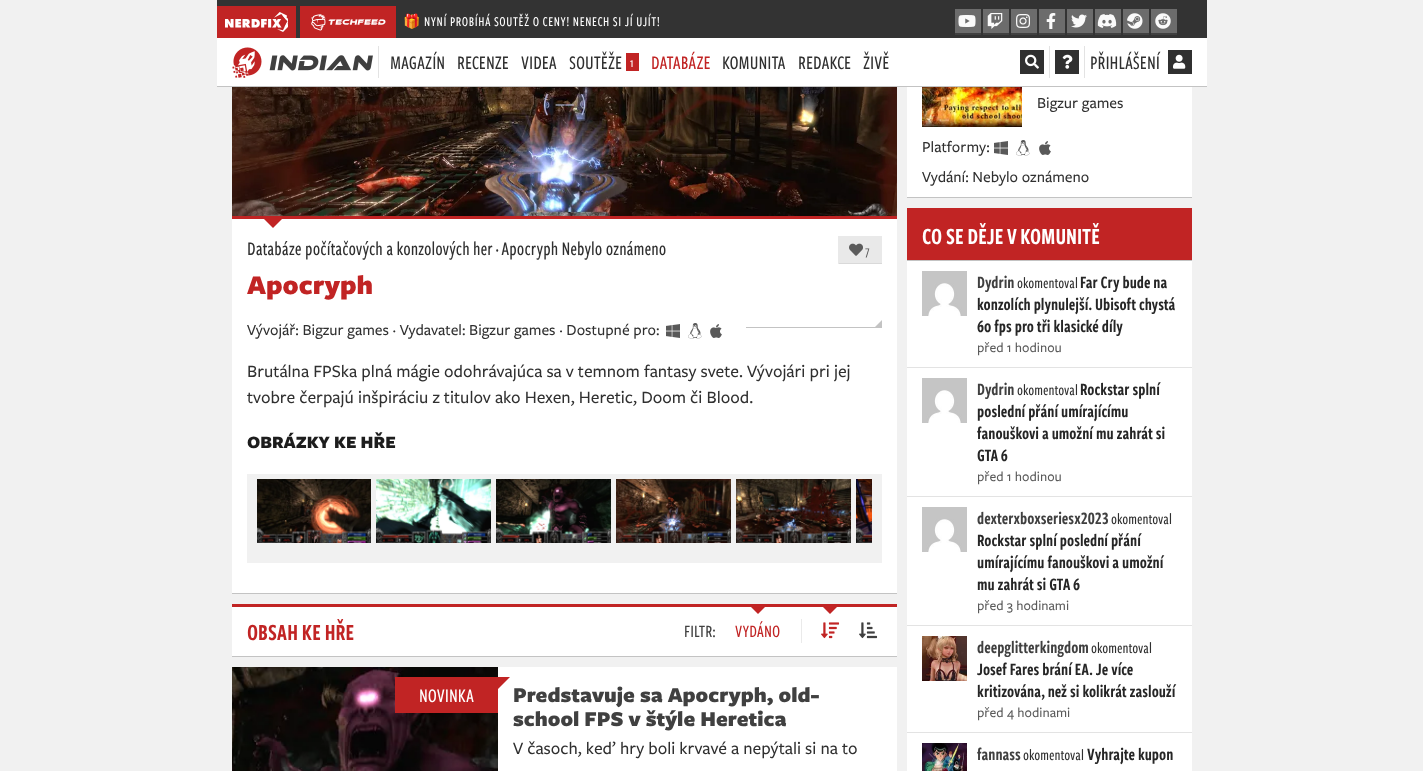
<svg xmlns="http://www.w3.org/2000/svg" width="1423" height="771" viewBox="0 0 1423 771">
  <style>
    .t1 { font: 14px Noto Color Emoji; letter-spacing: 0.6px; fill: #fff; }
    .t2 { font: 500 14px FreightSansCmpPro; letter-spacing: 0.6px; fill: #fff; }
    .t3 { font: 500 20px FreightSansCmpPro; fill: #303030; }
    .t4 { font: 500 14px FreightSansCmpPro; fill: #fff; }
    .t5 { font: 500 20px FreightSansCmpPro; fill: #c12424; }
    .t6 { font: 500 14px FreightSansCmpPro; fill: #5b5b5b; }
    .t7 { font: 900 28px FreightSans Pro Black; fill: #c12424; }
    .t8 { font: 500 16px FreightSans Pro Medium; fill: #303030; }
    .t9 { font: 500 18px FreightSans Pro Medium; fill: #303030; }
    .t10 { font: 900 18px FreightSans Pro Black; fill: #1d1d1d; }
    .t11 { font: 600 24px FreightSansCmpPro; fill: #c12424; }
    .t12 { font: 500 18px FreightSansCmpPro; fill: #404040; }
    .t13 { font: 500 18px FreightSansCmpPro; fill: #c12424; }
    .t14 { font: 500 20px FreightSansCmpPro; fill: #fff; }
    .t15 { font: 900 22px FreightSans Pro Black; fill: #404040; }
    .t16 { font: 600 24px FreightSansCmpPro; fill: #fff; }
    .t17 { font: 600 18px FreightSansCmpPro; fill: #404040; }
    .t18 { font: 500 16px FreightSansCmpPro; fill: #303030; }
    .t19 { font: 600 18px FreightSansCmpPro; fill: #262626; }
    .t20 { font: 500 14px FreightSans Pro Medium; fill: #5b5b5b; }
    .t21 { font: 600 18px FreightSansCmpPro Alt; fill: #404040; }
  </style>
  <rect width="100%" height="100%" fill="#f1f1f1"/>
  <rect x="217" y="38" width="990" height="48" fill="#fff"/>
  <rect x="217" y="86" width="990" height="1" fill="#c3c3c3"/>
  <rect x="217" y="0" width="990" height="38" fill="#333"/>
  <rect x="217" y="6" width="79" height="32" fill="#c12424"/>
  <image x="225" y="12" width="63" height="20" href="images/1.png"/>
  <rect x="300" y="6" width="96" height="32" fill="#c12424"/>
  <image x="311" y="14" width="75" height="17" href="images/2.png"/>
  <text x="403" y="26" class="t1">🎁</text>
  <text x="424" y="26" class="t2">NYNÍ PROBÍHÁ SOUTĚŽ O CENY! NENECH SI JÍ UJÍT!</text>
  <rect x="955" y="9" width="26" height="24" fill="#6c6c6c"/>
  <rect x="955" y="33" width="26" height="2" fill="#404040"/>
  <image x="958" y="15" width="18" height="12" href="images/3.png"/>
  <rect x="983" y="9" width="26" height="24" fill="#6c6c6c"/>
  <rect x="983" y="33" width="26" height="2" fill="#404040"/>
  <image x="987" y="13" width="16" height="16" href="images/4.png"/>
  <rect x="1011" y="9" width="26" height="24" fill="#6c6c6c"/>
  <rect x="1011" y="33" width="26" height="2" fill="#404040"/>
  <image x="1016" y="14" width="14" height="14" href="images/5.png"/>
  <rect x="1039" y="9" width="26" height="24" fill="#6c6c6c"/>
  <rect x="1039" y="33" width="26" height="2" fill="#404040"/>
  <image x="1046" y="13" width="10" height="16" href="images/6.png"/>
  <rect x="1067" y="9" width="26" height="24" fill="#6c6c6c"/>
  <rect x="1067" y="33" width="26" height="2" fill="#404040"/>
  <image x="1071" y="14" width="16" height="14" href="images/7.png"/>
  <rect x="1095" y="9" width="26" height="24" fill="#6c6c6c"/>
  <rect x="1095" y="33" width="26" height="2" fill="#404040"/>
  <image x="1097" y="14" width="20" height="14" href="images/8.png"/>
  <rect x="1123" y="9" width="26" height="24" fill="#6c6c6c"/>
  <rect x="1123" y="33" width="26" height="2" fill="#404040"/>
  <image x="1127" y="13" width="16" height="16" href="images/9.png"/>
  <rect x="1151" y="9" width="26" height="24" fill="#6c6c6c"/>
  <rect x="1151" y="33" width="26" height="2" fill="#404040"/>
  <image x="1155" y="13" width="16" height="16" href="images/10.png"/>
  <image x="232" y="47" width="141" height="31" href="images/11.png"/>
  <rect x="378" y="46" width="1" height="32" fill="#e3e3e3"/>
  <text x="390" y="69" class="t3">MAGAZÍN</text>
  <text x="457" y="69" class="t3">RECENZE</text>
  <text x="521" y="69" class="t3">VIDEA</text>
  <text x="569" y="69" class="t3">SOUTĚŽE</text>
  <rect x="626" y="53" width="13" height="18" fill="#c12424"/>
  <text x="630" y="67" class="t4">1</text>
  <text x="651" y="69" class="t5">DATABÁZE</text>
  <text x="722" y="69" class="t3">KOMUNITA</text>
  <text x="798" y="69" class="t3">REDAKCE</text>
  <text x="863" y="69" class="t3">ŽIVĚ</text>
  <rect x="1020" y="50" width="24" height="24" fill="#303030"/>
  <image x="1025" y="54" width="14" height="15" href="images/12.png"/>
  <rect x="1049" y="46" width="1" height="32" fill="#e3e3e3"/>
  <rect x="1055" y="50" width="24" height="24" fill="#303030"/>
  <image x="1062" y="54" width="11" height="15" href="images/13.png"/>
  <rect x="1084" y="46" width="1" height="32" fill="#e3e3e3"/>
  <text x="1090" y="69" class="t3">PŘIHLÁŠENÍ</text>
  <rect x="1168" y="50" width="24" height="24" fill="#303030"/>
  <image x="1173" y="54" width="13" height="15" href="images/14.png"/>
  <rect x="232" y="219" width="665" height="374" fill="#fff"/>
  <rect x="232" y="593" width="665" height="1" fill="#c3c3c3"/>
  <rect x="232" y="216" width="665" height="3" fill="#c12424"/>
  <image x="232" y="87" width="665" height="129" href="images/15.png"/>
  <path d="M263 218H283L273 228Z" fill="#c12424"/>
  <text x="247" y="255" class="t3">Databáze počítačových a konzolových her · Apocryph Nebylo oznámeno</text>
  <rect x="839" y="236" width="43" height="27" fill="#e9e9e9"/>
  <rect x="838" y="263" width="44" height="1" fill="#d9d9d9"/>
  <rect x="838" y="236" width="1" height="28" fill="#e9e9e9"/>
  <image x="849" y="243" width="14" height="13" href="images/16.png"/>
  <text x="865" y="255" class="t6">7</text>
  <text x="247" y="294" class="t7">Apocryph</text>
  <text x="247" y="335" class="t8">Vývojář: Bigzur games · Vydavatel: Bigzur games · Dostupné pro:</text>
  <image x="666" y="324" width="14" height="14" href="images/17.png"/>
  <image x="688" y="323" width="14" height="16" href="images/18.png"/>
  <image x="710" y="324" width="12" height="14" href="images/19.png"/>
  <rect x="746" y="327" width="136" height="1" fill="#c3c3c3"/>
  <path d="M882 328H874L882 320Z" fill="#c3c3c3"/>
  <text x="247" y="377" class="t9">Brutálna FPSka plná mágie odohrávajúca sa v temnom fantasy svete. Vývojári pri jej</text>
  <text x="247" y="403" class="t9">tvobre čerpajú inšpiráciu z titulov ako Hexen, Heretic, Doom či Blood.</text>
  <text x="247" y="448" class="t10">OBRÁZKY KE HŘE</text>
  <rect x="247" y="474" width="635" height="89" fill="#f1f1f1"/>
  <image x="257" y="479" width="114" height="64" href="images/20.png"/>
  <image x="376" y="479" width="115" height="64" href="images/21.png"/>
  <image x="496" y="479" width="115" height="64" href="images/22.png"/>
  <image x="616" y="479" width="115" height="64" href="images/23.png"/>
  <image x="736" y="479" width="115" height="64" href="images/24.png"/>
  <image x="856" y="479" width="16" height="64" href="images/25.png"/>
  <rect x="232" y="607" width="665" height="49" fill="#fff"/>
  <rect x="232" y="604" width="665" height="3" fill="#c12424"/>
  <rect x="232" y="656" width="665" height="1" fill="#c3c3c3"/>
  <text x="247" y="640" class="t11">OBSAH KE HŘE</text>
  <text x="684" y="637" class="t12">FILTR:</text>
  <path d="M751 607H765L758 614Z" fill="#c12424"/>
  <text x="735" y="637" class="t13">VYDÁNO</text>
  <rect x="801" y="619" width="1" height="24" fill="#eaeaea"/>
  <path d="M823 607H837L830 614Z" fill="#c12424"/>
  <image x="821" y="622" width="19" height="17" href="images/26.png"/>
  <image x="859" y="622" width="19" height="17" href="images/27.png"/>
  <rect x="498" y="667" width="399" height="104" fill="#fff"/>
  <image x="232" y="667" width="266" height="104" href="images/28.png"/>
  <rect x="395" y="677" width="103" height="36" fill="#c12424"/>
  <path d="M498 677H510L498 689Z" fill="#c12424"/>
  <text x="419" y="702" class="t14">NOVINKA</text>
  <text x="513" y="702" class="t15">Predstavuje sa Apocryph, old-</text>
  <text x="513" y="726" class="t15">school FPS v štýle Heretica</text>
  <text x="513" y="754" class="t9">V časoch, keď hry boli krvavé a nepýtali si na to</text>
  <rect x="907" y="87" width="285" height="110" fill="#fff"/>
  <rect x="907" y="197" width="285" height="1" fill="#c3c3c3"/>
  <image x="922" y="87" width="100" height="40" href="images/29.png"/>
  <text x="1037" y="108" class="t8">Bigzur games</text>
  <text x="922" y="152" class="t8">Platformy:</text>
  <image x="994" y="141" width="14" height="14" href="images/17.png"/>
  <image x="1016" y="140" width="14" height="16" href="images/18.png"/>
  <image x="1039" y="141" width="12" height="14" href="images/19.png"/>
  <text x="922" y="182" class="t8">Vydání: Nebylo oznámeno</text>
  <rect x="907" y="261" width="285" height="510" fill="#fff"/>
  <rect x="907" y="208" width="285" height="52" fill="#c12424"/>
  <rect x="907" y="260" width="285" height="1" fill="#c3c3c3"/>
  <text x="922" y="244" class="t16">CO SE DĚJE V KOMUNITĚ</text>
  <rect x="907" y="367" width="285" height="1" fill="#e3e3e3"/>
  <image x="922" y="271" width="45" height="45" href="images/30.png"/>
  <text x="977" y="288" class="t17">Dydrin</text>
  <text x="1017" y="288" class="t18">okomentoval</text>
  <text x="1080" y="288" class="t19">Far Cry bude na</text>
  <text x="977" y="310" class="t19">konzolích plynulejší. Ubisoft chystá</text>
  <text x="977" y="332" class="t19">60 fps pro tři klasické díly</text>
  <text x="977" y="352" class="t20">před 1 hodinou</text>
  <rect x="907" y="496" width="285" height="1" fill="#e3e3e3"/>
  <image x="922" y="378" width="45" height="45" href="images/30.png"/>
  <text x="977" y="395" class="t17">Dydrin</text>
  <text x="1017" y="395" class="t18">okomentoval</text>
  <text x="1080" y="395" class="t19">Rockstar splní</text>
  <text x="977" y="417" class="t19">poslední přání umírajícímu</text>
  <text x="977" y="439" class="t19">fanouškovi a umožní mu zahrát si</text>
  <text x="977" y="461" class="t19">GTA 6</text>
  <text x="977" y="481" class="t20">před 1 hodinou</text>
  <rect x="907" y="625" width="285" height="1" fill="#e3e3e3"/>
  <image x="922" y="507" width="45" height="45" href="images/30.png"/>
  <text x="977" y="524" class="t21">dexterxboxseriesx2023</text>
  <text x="1111" y="524" class="t18">okomentoval</text>
  <text x="977" y="546" class="t19">Rockstar splní poslední přání</text>
  <text x="977" y="568" class="t19">umírajícímu fanouškovi a umožní</text>
  <text x="977" y="590" class="t19">mu zahrát si GTA 6</text>
  <text x="977" y="610" class="t20">před 3 hodinami</text>
  <rect x="907" y="732" width="285" height="1" fill="#e3e3e3"/>
  <image x="922" y="636" width="45" height="45" href="images/31.png"/>
  <text x="977" y="653" class="t17">deepglitterkingdom</text>
  <text x="1091" y="653" class="t18">okomentoval</text>
  <text x="977" y="675" class="t19">Josef Fares brání EA. Je více</text>
  <text x="977" y="697" class="t19">kritizována, než si kolikrát zaslouží</text>
  <text x="977" y="717" class="t20">před 4 hodinami</text>
  <image x="922" y="743" width="45" height="28" href="images/32.png"/>
  <text x="977" y="760" class="t17">fannass</text>
  <text x="1023" y="760" class="t18">okomentoval</text>
  <text x="1087" y="760" class="t19">Vyhrajte kupon</text>
</svg>
